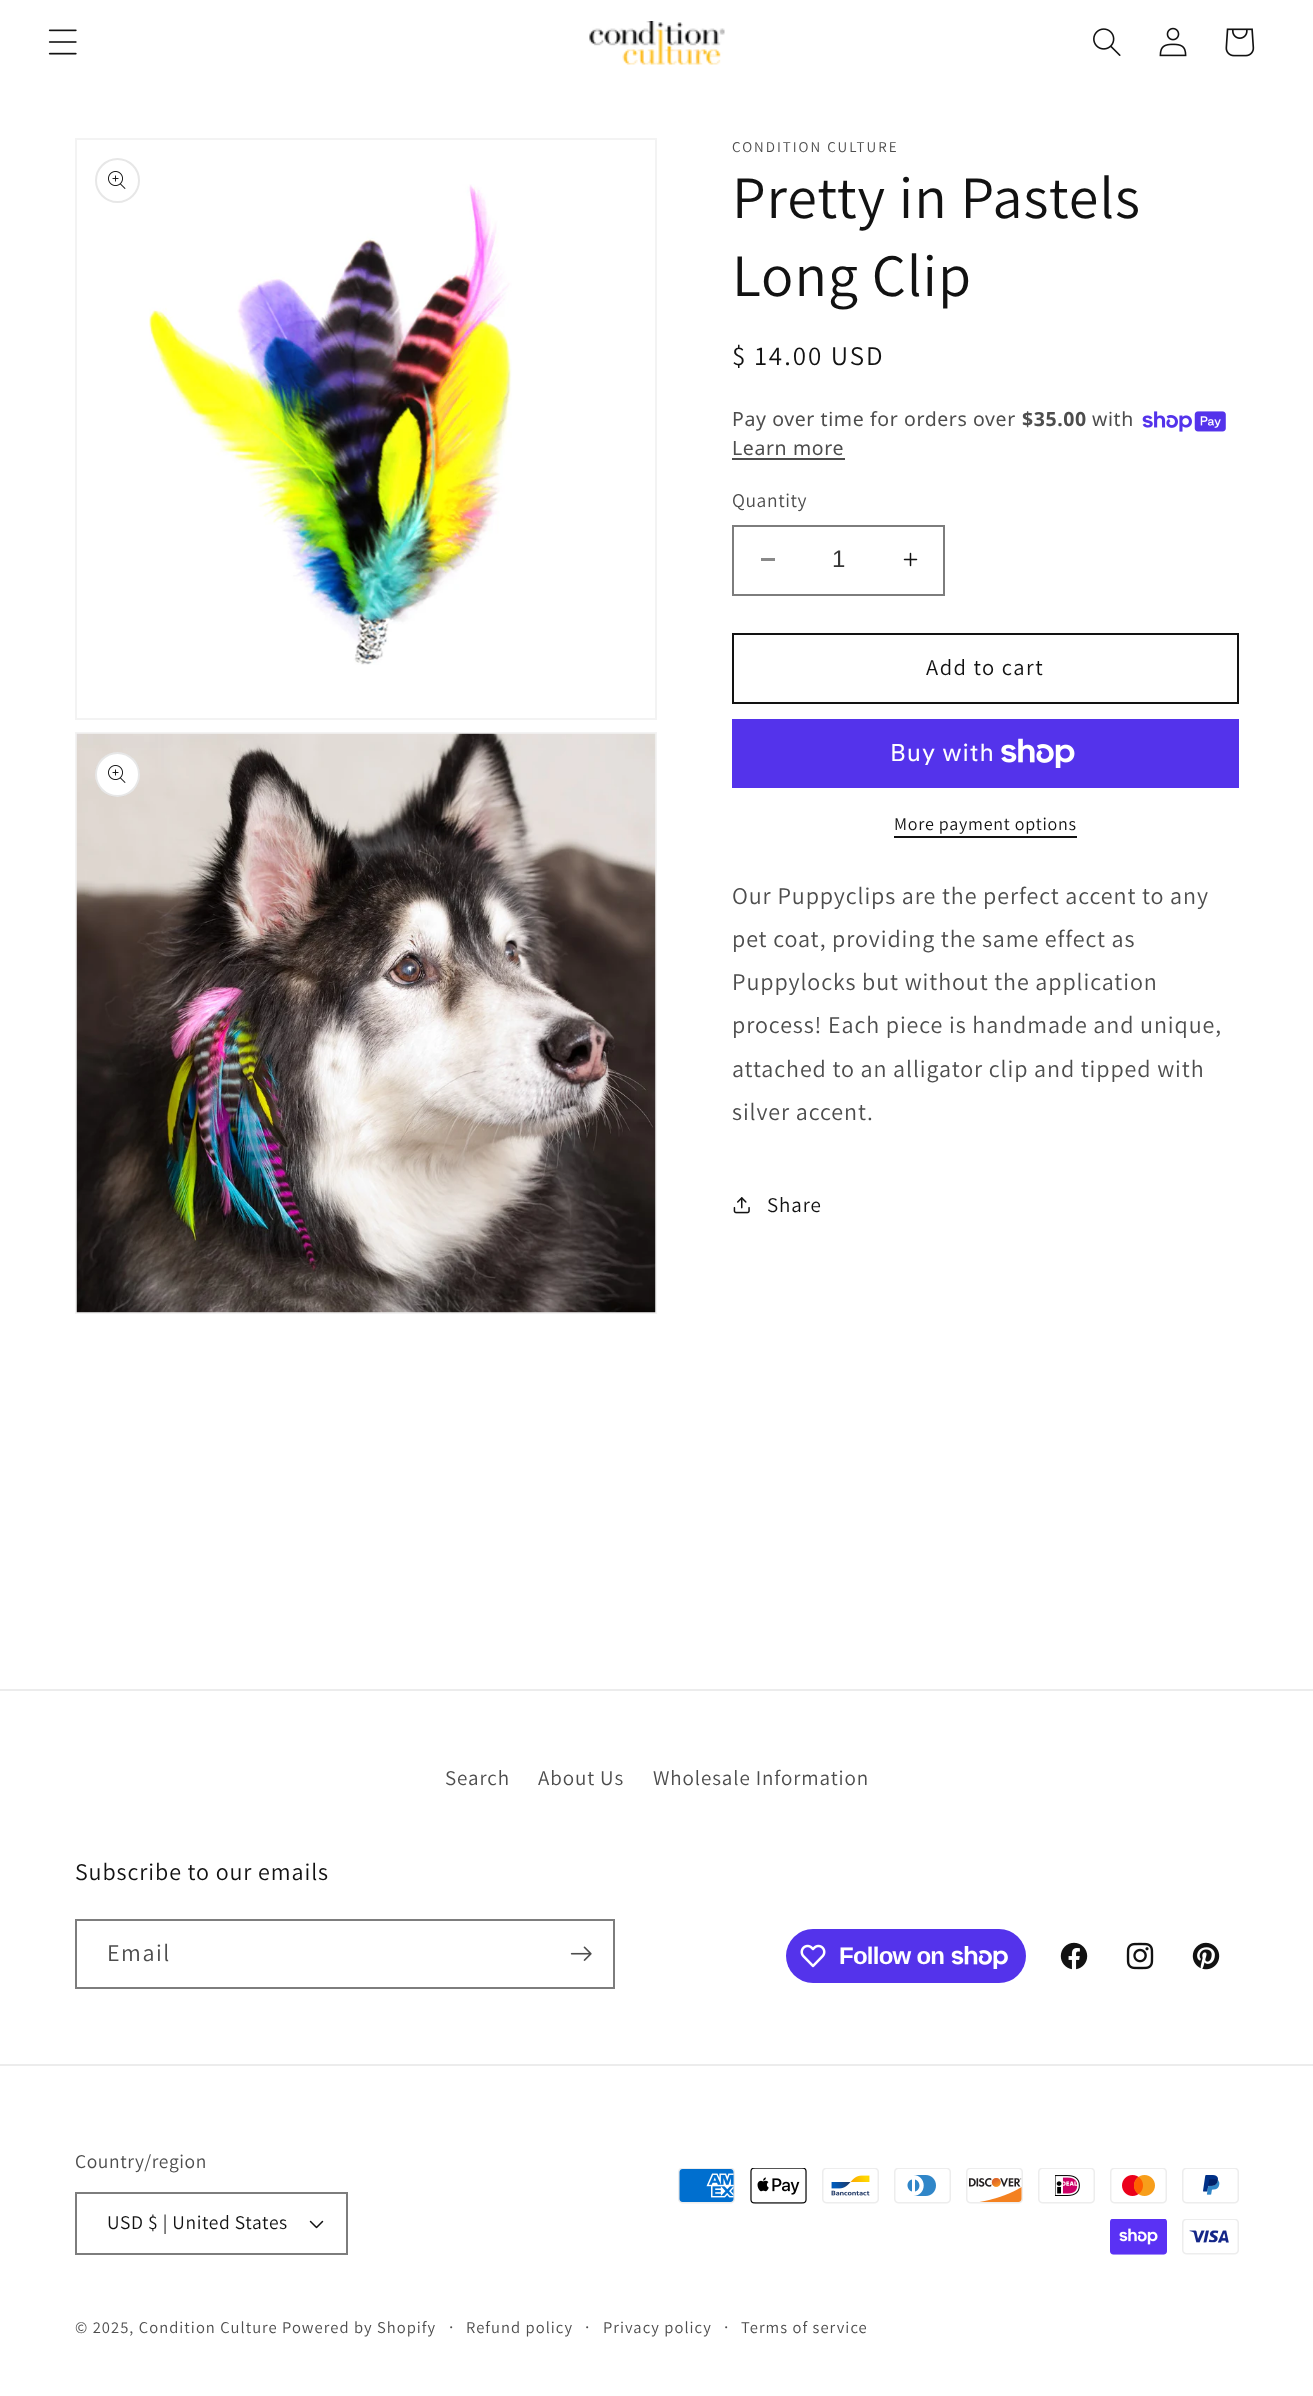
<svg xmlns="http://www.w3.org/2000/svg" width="1313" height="2396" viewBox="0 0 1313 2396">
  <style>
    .t1 { font: 15px Assistant; letter-spacing: 2px; fill: #4d4d4d; }
    .t2 { font: 60px Assistant; letter-spacing: 0.9px; fill: #121212; }
    .t3 { font: 27px Assistant; letter-spacing: 2px; fill: #121212; }
    .t4 { font: 19.5px Noto Sans; letter-spacing: 0.6px; fill: #4d4d4d; }
    .t5 { font: bold 19.5px Noto Sans; letter-spacing: 0.6px; fill: #4d4d4d; }
    .t6 { font: 19.5px Assistant; letter-spacing: 0.6px; fill: #4d4d4d; }
    .t7 { font: 24px Liberation Sans; fill: #363636; }
    .t8 { font: 22.5px Assistant; letter-spacing: 1.5px; fill: #121212; }
    .t9 { font: 24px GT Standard; letter-spacing: 0.9px; fill: #fff; }
    .t10 { font: 18px Assistant; letter-spacing: 0.75px; fill: #121212; }
    .t11 { font: 24px Assistant; letter-spacing: 0.9px; fill: #4d4d4d; }
    .t12 { font: 21px Assistant; letter-spacing: 0.9px; fill: #121212; }
    .t13 { font: 21px Assistant; letter-spacing: 0.9px; fill: #4d4d4d; }
    .t14 { font: 24px Assistant; letter-spacing: 0.9px; fill: #121212; }
    .t15 { font: 24px Assistant; letter-spacing: 1.5px; fill: #4d4d4d; }
    .t16 { font: bold 24px Liberation Sans; letter-spacing: -0.75px; fill: #fff; }
    .t17 { font: 19.5px Assistant; letter-spacing: 0.6px; fill: #121212; }
    .t18 { font: 16.5px Assistant; letter-spacing: 1.05px; fill: #4d4d4d; }
    .t19 { font: 18px Assistant; letter-spacing: 1.05px; fill: #4d4d4d; }
  </style>
  <rect width="100%" height="100%" fill="#fff"/>
  <image x="48" y="29" width="29" height="26" href="images/1.png"/>
  <image x="589" y="21" width="136" height="44" href="images/2.png"/>
  <image x="1093" y="28" width="28" height="28" href="images/3.png"/>
  <image x="1159" y="27" width="28" height="30" href="images/4.png"/>
  <image x="1225" y="28" width="30" height="29" href="images/5.png"/>
  <rect x="76" y="139" width="580" height="580" fill="none" stroke="#f3f3f3" stroke-width="2"/>
  <circle cx="117.5" cy="180.5" r="21.5" fill="none" stroke="#e7e7e7" stroke-width="2"/>
  <image x="108" y="171" width="18" height="18" href="images/6.png"/>
  <image x="149" y="184" width="363" height="481" href="images/7.png"/>
  <rect x="76" y="733" width="580" height="580" fill="none" stroke="#f3f3f3" stroke-width="2"/>
  <image x="76" y="733" width="580" height="580" href="images/8.png"/>
  <circle cx="117.5" cy="774.5" r="22.5" fill="#fff"/>
  <circle cx="117.5" cy="774.5" r="21.5" fill="none" stroke="#1212121a" stroke-width="2"/>
  <image x="108" y="765" width="18" height="18" href="images/6.png"/>
  <text x="732" y="152" class="t1">CONDITION CULTURE</text>
  <text x="732" y="218" class="t2">Pretty in Pastels</text>
  <text x="732" y="296" class="t2">Long Clip</text>
  <text x="732" y="365" class="t3">$ 14.00 USD</text>
  <text x="732" y="426" class="t4">Pay over time for orders over</text>
  <text x="1022" y="426" class="t5">$35.00</text>
  <text x="1092" y="426" class="t4">with</text>
  <image x="1142" y="411" width="84" height="21" href="images/9.png"/>
  <text x="732" y="455" class="t4">Learn more</text>
  <rect x="732" y="458" width="113" height="2" fill="#4d4d4d"/>
  <text x="732" y="507" class="t6">Quantity</text>
  <rect x="761" y="558" width="14" height="3" fill="#898989"/>
  <image x="903" y="552" width="15" height="15" href="images/10.png"/>
  <rect x="733" y="526" width="211" height="69" fill="none" stroke="#7d7d7d" stroke-width="2"/>
  <text x="832" y="567" class="t7">1</text>
  <rect x="733" y="634" width="505" height="69" fill="none" stroke="#121212" stroke-width="2"/>
  <text x="926" y="675" class="t8">Add to cart</text>
  <rect x="732" y="719" width="507" height="69" fill="#5433eb"/>
  <text x="890" y="761" class="t9">Buy with</text>
  <image x="1001" y="738" width="74" height="30" href="images/11.png"/>
  <text x="894" y="830" class="t10">More payment options</text>
  <rect x="894" y="836" width="183" height="2" fill="#121212"/>
  <text x="732" y="904" class="t11">Our Puppyclips are the perfect accent to any</text>
  <text x="732" y="947" class="t11">pet coat, providing the same effect as</text>
  <text x="732" y="990" class="t11">Puppylocks but without the application</text>
  <text x="732" y="1033" class="t11">process! Each piece is handmade and unique,</text>
  <text x="732" y="1077" class="t11">attached to an alligator clip and tipped with</text>
  <text x="732" y="1120" class="t11">silver accent.</text>
  <image x="733" y="1197" width="17" height="17" href="images/12.png"/>
  <text x="767" y="1212" class="t12">Share</text>
  <rect x="0" y="1689" width="1313" height="2" fill="#ececec"/>
  <text x="445" y="1785" class="t13">Search</text>
  <text x="538" y="1785" class="t13">About Us</text>
  <text x="653" y="1785" class="t13">Wholesale Information</text>
  <text x="75" y="1880" class="t14">Subscribe to our emails</text>
  <rect x="76" y="1920" width="538" height="68" fill="none" stroke="#7d7d7d" stroke-width="2"/>
  <text x="107" y="1961" class="t15">Email</text>
  <image x="570" y="1946" width="22" height="15" href="images/13.png"/>
  <rect x="786" y="1929" width="240" height="54" rx="27" fill="#5433eb"/>
  <image x="800" y="1944" width="26" height="24" href="images/14.png"/>
  <text x="839" y="1964" class="t16">Follow on</text>
  <image x="951" y="1946" width="57" height="23" href="images/15.png"/>
  <image x="1060" y="1942" width="28" height="28" href="images/16.png"/>
  <image x="1126" y="1942" width="28" height="28" href="images/17.png"/>
  <image x="1192" y="1942" width="28" height="28" href="images/18.png"/>
  <rect x="0" y="2064" width="1313" height="2" fill="#ececec"/>
  <text x="75" y="2168" class="t6">Country/region</text>
  <image x="309" y="2220" width="15" height="9" href="images/19.png"/>
  <rect x="76" y="2193" width="271" height="61" fill="none" stroke="#7d7d7d" stroke-width="2"/>
  <text x="107" y="2229" class="t17">USD $ | United States</text>
  <image x="678" y="2168" width="57" height="36" href="images/20.png"/>
  <image x="750" y="2168" width="57" height="36" href="images/21.png"/>
  <image x="822" y="2168" width="57" height="36" href="images/22.png"/>
  <image x="894" y="2168" width="57" height="36" href="images/23.png"/>
  <image x="966" y="2168" width="57" height="36" href="images/24.png"/>
  <image x="1038" y="2168" width="57" height="36" href="images/25.png"/>
  <image x="1110" y="2168" width="57" height="36" href="images/26.png"/>
  <image x="1182" y="2168" width="57" height="36" href="images/27.png"/>
  <image x="1110" y="2219" width="57" height="36" href="images/28.png"/>
  <image x="1182" y="2219" width="57" height="36" href="images/29.png"/>
  <text x="75" y="2333" class="t18">© 2025, Condition Culture</text>
  <text x="282" y="2333" class="t18">Powered by Shopify</text>
  <text x="449" y="2333" class="t19">·</text>
  <text x="466" y="2333" class="t18">Refund policy</text>
  <text x="585" y="2333" class="t19">·</text>
  <text x="603" y="2333" class="t18">Privacy policy</text>
  <text x="724" y="2333" class="t19">·</text>
  <text x="741" y="2333" class="t18">Terms of service</text>
</svg>
